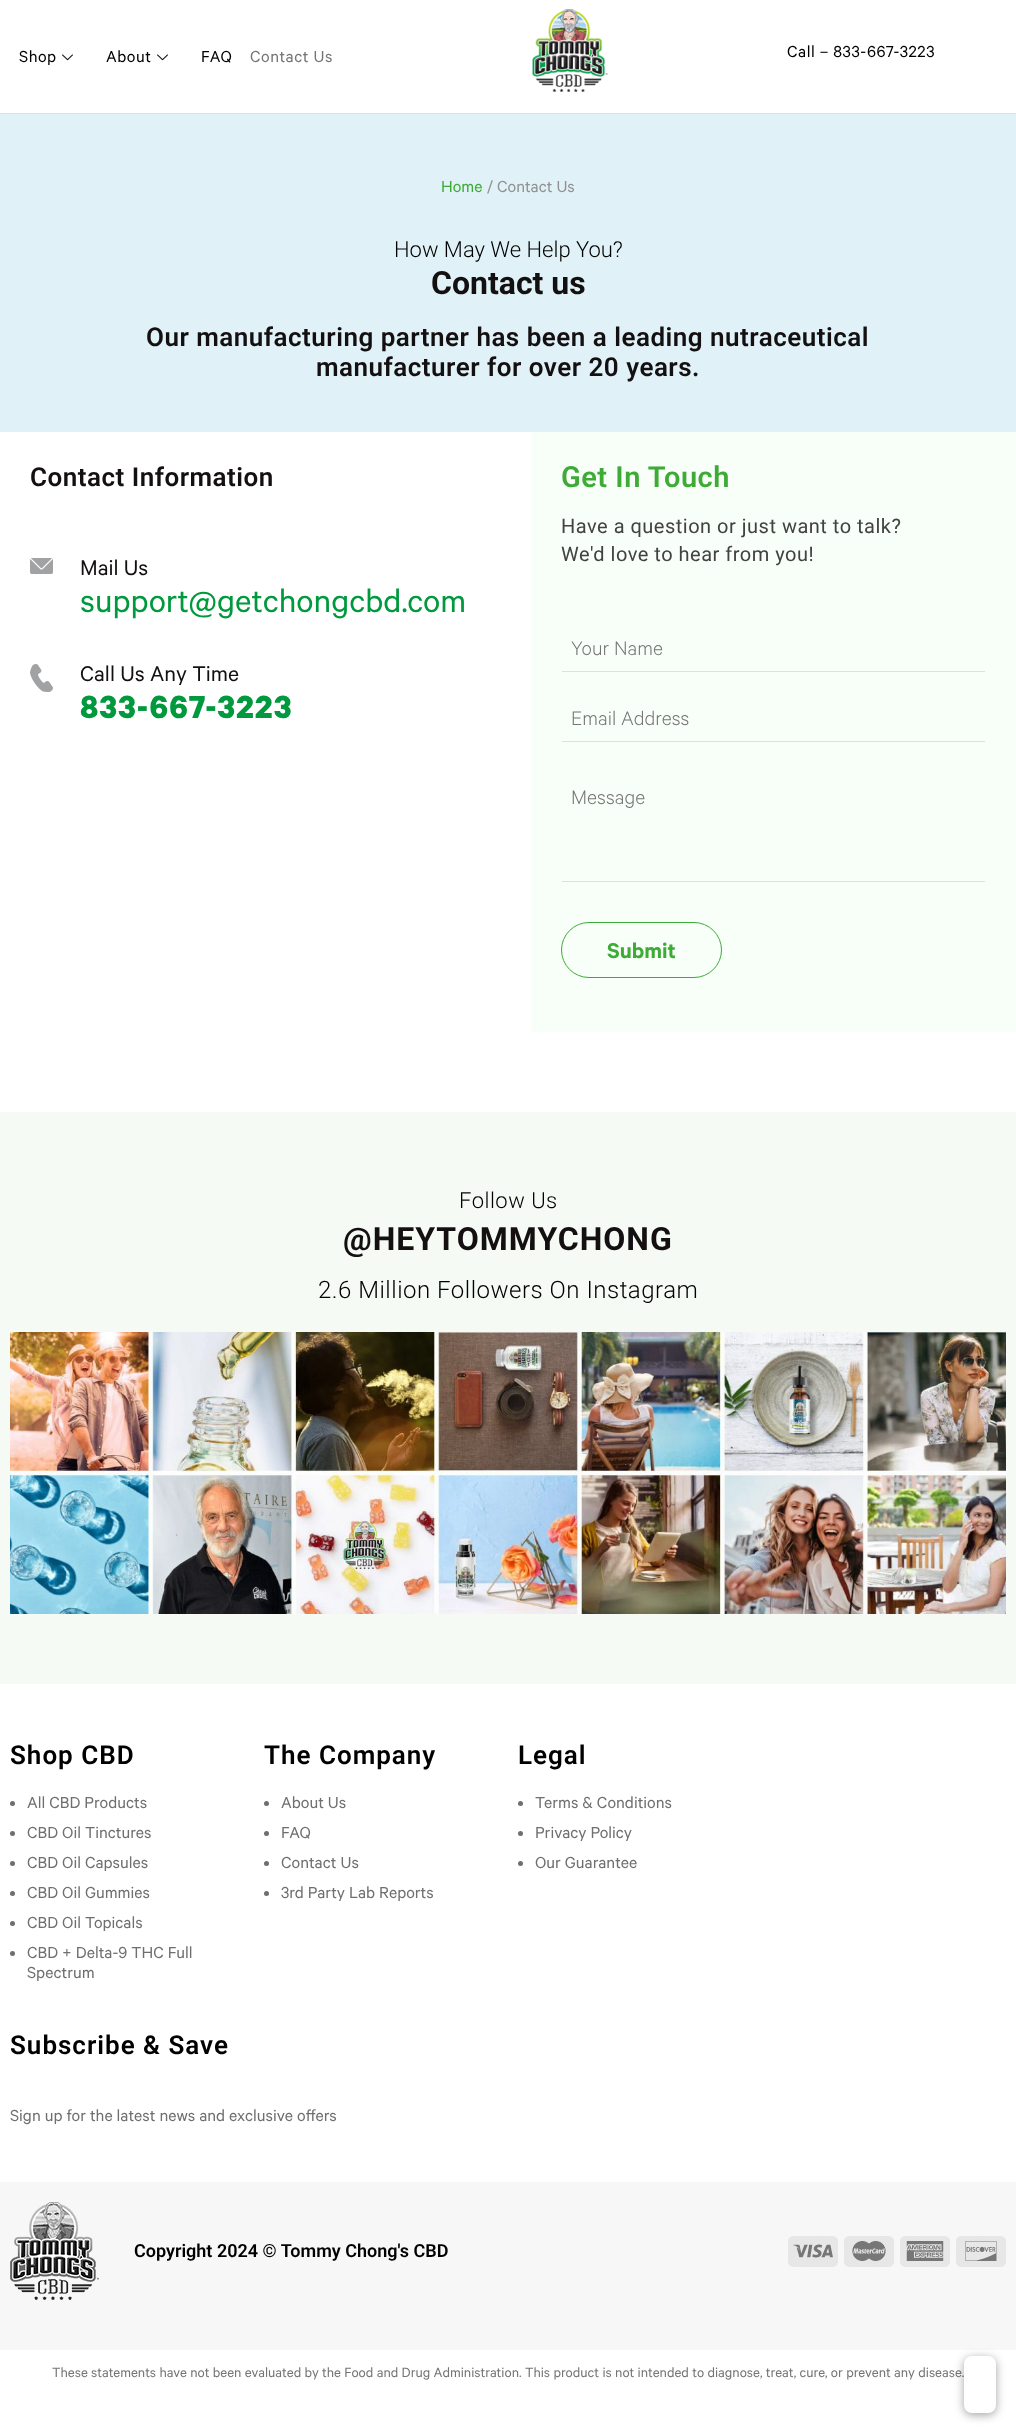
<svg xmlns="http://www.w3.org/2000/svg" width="1016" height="2433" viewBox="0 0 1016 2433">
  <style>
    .t1 { font: 18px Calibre; letter-spacing: 0.5px; fill: #000; }
    .t2 { font: 18px Calibre; letter-spacing: 0.5px; fill: #757575; }
    .t3 { font: 18px Calibre; fill: #3eab36; }
    .t4 { font: 18px Calibre; fill: #919191; }
    .t5 { font: 300 22px Roboto; fill: #000; }
    .t6 { font: bold 32px Roboto; fill: #141011; }
    .t7 { font: 600 26px Roboto; letter-spacing: 0.5px; fill: #141011; }
    .t8 { font: 24px Calibre; fill: #141011; }
    .t9 { font: 36px Calibre; fill: #00993e; }
    .t10 { font: bold 36px Calibre; letter-spacing: 1px; fill: #00993e; }
    .t11 { font: 600 29px Roboto; letter-spacing: 0.5px; fill: #3eab36; }
    .t12 { font: 20px Roboto; letter-spacing: 0.5px; fill: #424242; }
    .t13 { font: 300 22px Calibre; fill: #757575; }
    .t14 { font: 600 24px Calibre; fill: #3eab36; }
    .t15 { font: 300 22px Roboto; letter-spacing: 0.5px; fill: #000; }
    .t16 { font: bold 32px Roboto; letter-spacing: 1px; fill: #141011; }
    .t17 { font: 300 24px Roboto; letter-spacing: 0.5px; fill: #000; }
    .t18 { font: 600 26px Roboto; letter-spacing: 1px; fill: #000; }
    .t19 { font: 18px Calibre; fill: #6f6f6f; }
    .t20 { font: 600 18px Roboto; fill: #000; }
    .t21 { font: 15px Calibre; fill: #757575; }
  </style>
  <rect width="100%" height="100%" fill="#fff"/>
  <rect x="0" y="113" width="1016" height="1" fill="#dedfdf"/>
  <text x="19" y="62" class="t1">Shop</text>
  <image x="62" y="54" width="11" height="7" href="images/1.png"/>
  <text x="106" y="62" class="t1">About</text>
  <image x="157" y="54" width="11" height="7" href="images/1.png"/>
  <text x="201" y="62" class="t1">FAQ</text>
  <text x="250" y="62" class="t2">Contact Us</text>
  <image x="532" y="9" width="76" height="83" href="images/2.png"/>
  <text x="787" y="57" class="t1">Call – 833-667-3223</text>
  <rect x="0" y="114" width="1016" height="318" fill="#e0f2f7"/>
  <text x="441" y="192" class="t3">Home</text>
  <text x="487" y="192" class="t4">/ Contact Us</text>
  <text x="394" y="257" class="t5">How May We Help You?</text>
  <text x="431" y="294" class="t6">Contact us</text>
  <text x="146" y="346" class="t7">Our manufacturing partner has been a leading nutraceutical</text>
  <text x="316" y="376" class="t7">manufacturer for over 20 years.</text>
  <text x="30" y="486" class="t7">Contact Information</text>
  <image x="30" y="558" width="23" height="16" href="images/3.png"/>
  <text x="80" y="575" class="t8">Mail Us</text>
  <text x="80" y="612" class="t9">support@getchongcbd.com</text>
  <image x="30" y="664" width="23" height="28" href="images/4.png"/>
  <text x="80" y="681" class="t8">Call Us Any Time</text>
  <text x="80" y="718" class="t10">833-667-3223</text>
  <rect x="531" y="432" width="485" height="600" fill="#f8fff8"/>
  <text x="561" y="487" class="t11">Get In Touch</text>
  <text x="561" y="533" class="t12">Have a question or just want to talk?</text>
  <text x="561" y="561" class="t12">We'd love to hear from you!</text>
  <rect x="562" y="671" width="423" height="1" fill="#e0e0e0"/>
  <text x="571" y="655" class="t13">Your Name</text>
  <rect x="562" y="741" width="423" height="1" fill="#e0e0e0"/>
  <text x="571" y="725" class="t13">Email Address</text>
  <rect x="562" y="881" width="423" height="1" fill="#e0e0e0"/>
  <text x="571" y="804" class="t13">Message</text>
  <rect x="561.5" y="922.5" width="160" height="55" rx="27.5" fill="none" stroke="#3eab36"/>
  <text x="607" y="958" class="t14">Submit</text>
  <rect x="0" y="1112" width="1016" height="572" fill="#f5faf5"/>
  <text x="459" y="1208" class="t15">Follow Us</text>
  <text x="343" y="1250" class="t16">@HEYTOMMYCHONG</text>
  <text x="318" y="1298" class="t17">2.6 Million Followers On Instagram</text>
  <image x="10" y="1332" width="996" height="282" href="images/5.png"/>
  <text x="10" y="1764" class="t18">Shop CBD</text>
  <circle cx="12.5" cy="1803.5" r="2.5" fill="#6f6f6f"/>
  <text x="27" y="1808" class="t19">All CBD Products</text>
  <circle cx="12.5" cy="1833.5" r="2.5" fill="#6f6f6f"/>
  <text x="27" y="1838" class="t19">CBD Oil Tinctures</text>
  <circle cx="12.5" cy="1863.5" r="2.5" fill="#6f6f6f"/>
  <text x="27" y="1868" class="t19">CBD Oil Capsules</text>
  <circle cx="12.5" cy="1893.5" r="2.5" fill="#6f6f6f"/>
  <text x="27" y="1898" class="t19">CBD Oil Gummies</text>
  <circle cx="12.5" cy="1923.5" r="2.5" fill="#6f6f6f"/>
  <text x="27" y="1928" class="t19">CBD Oil Topicals</text>
  <circle cx="12.5" cy="1953.5" r="2.5" fill="#6f6f6f"/>
  <text x="27" y="1958" class="t19">CBD + Delta-9 THC Full</text>
  <text x="27" y="1978" class="t19">Spectrum</text>
  <text x="264" y="1764" class="t18">The Company</text>
  <circle cx="266.5" cy="1803.5" r="2.5" fill="#6f6f6f"/>
  <text x="281" y="1808" class="t19">About Us</text>
  <circle cx="266.5" cy="1833.5" r="2.5" fill="#6f6f6f"/>
  <text x="281" y="1838" class="t19">FAQ</text>
  <circle cx="266.5" cy="1863.5" r="2.5" fill="#6f6f6f"/>
  <text x="281" y="1868" class="t19">Contact Us</text>
  <circle cx="266.5" cy="1893.5" r="2.5" fill="#6f6f6f"/>
  <text x="281" y="1898" class="t19">3rd Party Lab Reports</text>
  <text x="518" y="1764" class="t18">Legal</text>
  <circle cx="520.5" cy="1803.5" r="2.5" fill="#6f6f6f"/>
  <text x="535" y="1808" class="t19">Terms &amp; Conditions</text>
  <circle cx="520.5" cy="1833.5" r="2.5" fill="#6f6f6f"/>
  <text x="535" y="1838" class="t19">Privacy Policy</text>
  <circle cx="520.5" cy="1863.5" r="2.5" fill="#6f6f6f"/>
  <text x="535" y="1868" class="t19">Our Guarantee</text>
  <text x="10" y="2054" class="t18">Subscribe &amp; Save</text>
  <text x="10" y="2121" class="t19">Sign up for the latest news and exclusive offers</text>
  <rect x="0" y="2182" width="1016" height="168" fill="#f7f7f7"/>
  <image x="10" y="2202" width="89" height="98" href="images/6.png"/>
  <text x="134" y="2257" class="t20">Copyright 2024 © Tommy Chong's CBD</text>
  <image x="788" y="2236" width="218" height="31" href="images/7.png"/>
  <text x="52" y="2377" class="t21">These statements have not been evaluated by the Food and Drug Administration. This product is not intended to diagnose, treat, cure, or prevent any disease.</text>
  <rect x="964" y="2358" width="32" height="57" rx="8" fill="#0000005e" filter="blur(5px)"/>
  <rect x="964" y="2356" width="32" height="57" rx="8" fill="#fff"/>
</svg>
